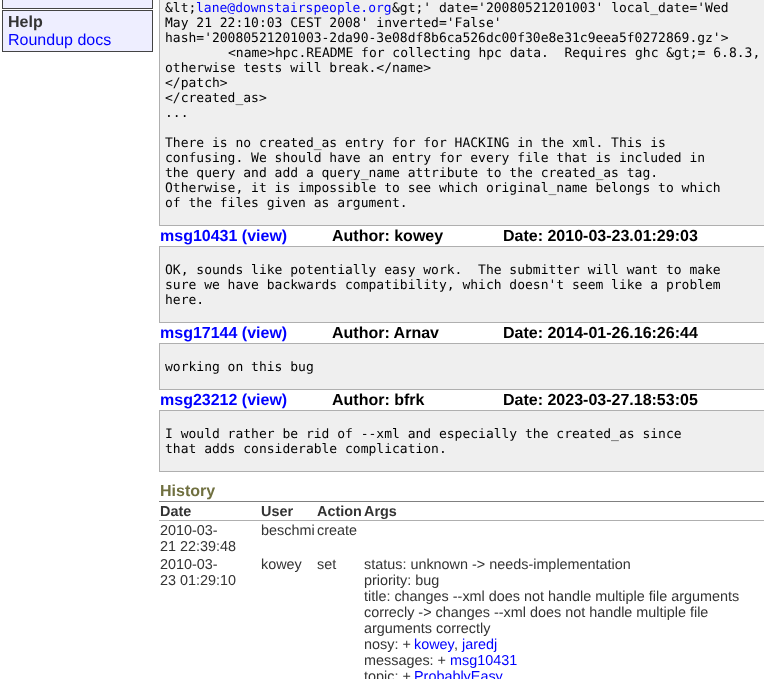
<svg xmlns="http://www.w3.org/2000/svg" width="764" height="679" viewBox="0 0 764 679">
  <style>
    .t1 { font: bold 16px Liberation Sans; fill: #333; }
    .t2 { font: 16px Liberation Sans; fill: #00f; }
    .t3 { font: 13px DejaVu Sans Mono; fill: #000; }
    .t4 { font: 13px DejaVu Sans Mono; fill: #00f; }
    .t5 { font: bold 16px Liberation Sans; fill: #00f; }
    .t6 { font: bold 16px Liberation Sans; fill: #000; }
    .t7 { font: bold 16px Liberation Sans; fill: #707040; }
    .t8 { font: bold 14.4px Liberation Sans; fill: #333; }
    .t9 { font: 14.4px Liberation Sans; fill: #333; }
    .t10 { font: 14.4px Liberation Sans; fill: #00f; }
  </style>
  <rect width="100%" height="100%" fill="#fff"/>
  <rect x="2.5" y="-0.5" width="150" height="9" fill="#eef" stroke="#444"/>
  <rect x="2.5" y="10.5" width="150" height="41" fill="#eef" stroke="#444"/>
  <text x="8" y="27" class="t1">Help</text>
  <text x="8" y="45" class="t2">Roundup docs</text>
  <rect x="160" y="0" width="604" height="225" fill="#efefef"/>
  <rect x="159" y="225" width="605" height="1" fill="#afafaf"/>
  <rect x="159" y="0" width="1" height="226" fill="#afafaf"/>
  <text x="165" y="12" class="t3">&amp;lt;</text>
  <text x="196" y="12" class="t4">lane@downstairspeople.org</text>
  <text x="392" y="12" class="t3">&amp;gt;' date='20080521201003' local_date='Wed</text>
  <text x="165" y="27" class="t3">May 21 22:10:03 CEST 2008' inverted='False'</text>
  <text x="165" y="42" class="t3">hash='20080521201003-2da90-3e08df8b6ca526dc00f30e8e31c9eea5f0272869.gz'&gt;</text>
  <text x="228" y="57" class="t3" xml:space="preserve">&lt;name&gt;hpc.README for collecting hpc data.  Requires ghc &amp;gt;= 6.8.3,</text>
  <text x="165" y="72" class="t3">otherwise tests will break.&lt;/name&gt;</text>
  <text x="165" y="87" class="t3">&lt;/patch&gt;</text>
  <text x="165" y="102" class="t3">&lt;/created_as&gt;</text>
  <text x="165" y="117" class="t3">...</text>
  <text x="165" y="147" class="t3">There is no created_as entry for for HACKING in the xml. This is</text>
  <text x="165" y="162" class="t3">confusing. We should have an entry for every file that is included in</text>
  <text x="165" y="177" class="t3">the query and add a query_name attribute to the created_as tag.</text>
  <text x="165" y="192" class="t3">Otherwise, it is impossible to see which original_name belongs to which</text>
  <text x="165" y="207" class="t3">of the files given as argument.</text>
  <rect x="159" y="246" width="605" height="1" fill="#afafaf"/>
  <text x="160" y="241" class="t5">msg10431 (view)</text>
  <text x="332" y="241" class="t6">Author: kowey</text>
  <text x="503" y="241" class="t6">Date: 2010-03-23.01:29:03</text>
  <rect x="160" y="247" width="604" height="75" fill="#efefef"/>
  <rect x="159" y="322" width="605" height="1" fill="#afafaf"/>
  <rect x="159" y="247" width="1" height="76" fill="#afafaf"/>
  <text x="165" y="274" class="t3" xml:space="preserve">OK, sounds like potentially easy work.  The submitter will want to make</text>
  <text x="165" y="289" class="t3">sure we have backwards compatibility, which doesn't seem like a problem</text>
  <text x="165" y="304" class="t3">here.</text>
  <rect x="159" y="343" width="605" height="1" fill="#afafaf"/>
  <text x="160" y="338" class="t5">msg17144 (view)</text>
  <text x="332" y="338" class="t6">Author: Arnav</text>
  <text x="503" y="338" class="t6">Date: 2014-01-26.16:26:44</text>
  <rect x="160" y="344" width="604" height="45" fill="#efefef"/>
  <rect x="159" y="389" width="605" height="1" fill="#afafaf"/>
  <rect x="159" y="344" width="1" height="46" fill="#afafaf"/>
  <text x="165" y="371" class="t3">working on this bug</text>
  <rect x="159" y="410" width="605" height="1" fill="#afafaf"/>
  <text x="160" y="405" class="t5">msg23212 (view)</text>
  <text x="332" y="405" class="t6">Author: bfrk</text>
  <text x="503" y="405" class="t6">Date: 2023-03-27.18:53:05</text>
  <rect x="160" y="411" width="604" height="60" fill="#efefef"/>
  <rect x="159" y="471" width="605" height="1" fill="#afafaf"/>
  <rect x="159" y="411" width="1" height="61" fill="#afafaf"/>
  <text x="165" y="438" class="t3">I would rather be rid of --xml and especially the created_as since</text>
  <text x="165" y="453" class="t3">that adds considerable complication.</text>
  <rect x="159" y="501" width="605" height="1" fill="#808080"/>
  <text x="160" y="496" class="t7">History</text>
  <rect x="159" y="520" width="605" height="1" fill="#afafaf"/>
  <text x="160" y="516" class="t8">Date</text>
  <text x="261" y="516" class="t8">User</text>
  <text x="317" y="516" class="t8">Action</text>
  <text x="364" y="516" class="t8">Args</text>
  <text x="160" y="535" class="t9">2010-03-</text>
  <text x="160" y="551" class="t9">21 22:39:48</text>
  <text x="261" y="535" class="t9">beschmi</text>
  <text x="317" y="535" class="t9">create</text>
  <text x="160" y="569" class="t9">2010-03-</text>
  <text x="160" y="585" class="t9">23 01:29:10</text>
  <text x="261" y="569" class="t9">kowey</text>
  <text x="317" y="569" class="t9">set</text>
  <text x="364" y="569" class="t9">status: unknown -&gt; needs-implementation</text>
  <text x="364" y="585" class="t9">priority: bug</text>
  <text x="364" y="601" class="t9">title: changes --xml does not handle multiple file arguments</text>
  <text x="364" y="617" class="t9">correcly -&gt; changes --xml does not handle multiple file</text>
  <text x="364" y="633" class="t9">arguments correctly</text>
  <text x="364" y="649" class="t9">nosy: +</text>
  <text x="414" y="649" class="t10">kowey</text>
  <text x="462" y="649" class="t10">jaredj</text>
  <text x="454" y="649" class="t9">,</text>
  <text x="364" y="665" class="t9">messages: +</text>
  <text x="450" y="665" class="t10">msg10431</text>
  <text x="364" y="681" class="t9">topic: +</text>
  <text x="414" y="681" class="t10">ProbablyEasy</text>
</svg>
